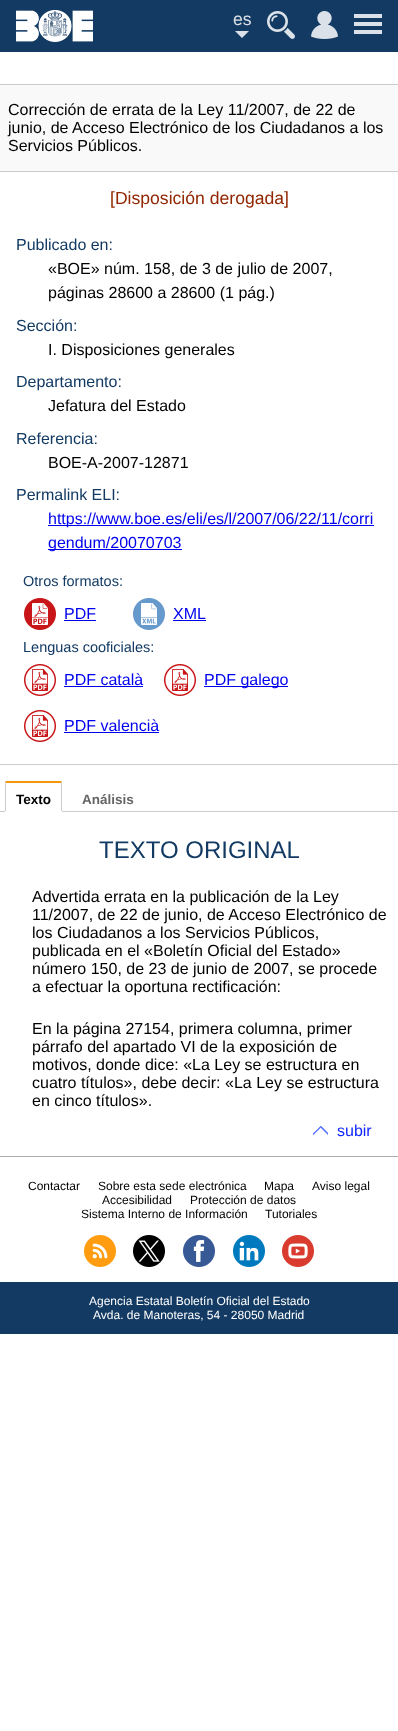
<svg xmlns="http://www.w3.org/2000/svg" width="398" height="1731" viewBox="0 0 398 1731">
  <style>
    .t1 { font: 17.6px Liberation Sans; fill: #dbe1e8; }
    .t2 { font: 16px Liberation Sans; fill: #000; }
    .t3 { font: 17.6px Liberation Sans; fill: #912600; }
    .t4 { font: 16px Liberation Sans; fill: #123a63; }
    .t5 { font: 16px Liberation Sans; fill: #00e; }
    .t6 { font: 14.5px Liberation Sans; fill: #123a63; }
    .t7 { font: bold 13.5px Liberation Sans; fill: #000; }
    .t8 { font: bold 13.5px Liberation Sans; fill: #666; }
    .t9 { font: 24px Liberation Sans; fill: #123a63; }
    .t10 { font: 16px Liberation Sans; fill: #1127ff; }
    .t11 { font: 12px Liberation Sans; fill: #000; }
    .t12 { font: 12px Liberation Sans; fill: #fff; }
  </style>
  <rect width="100%" height="100%" fill="#fff"/>
  <rect x="0" y="0" width="398" height="52" fill="#123a63"/>
  <image x="16" y="10" width="77" height="32" href="images/1.png"/>
  <text x="233" y="25" class="t1">es</text>
  <path d="M235 31H249L242 38Z" fill="#dbe1e8"/>
  <image x="267" y="11" width="28" height="28" href="images/2.png"/>
  <image x="311" y="11" width="27" height="28" href="images/3.png"/>
  <rect x="354" y="14" width="28" height="4" fill="#dbe1e8"/>
  <rect x="354" y="22" width="28" height="4" fill="#dbe1e8"/>
  <rect x="354" y="30" width="28" height="4" fill="#dbe1e8"/>
  <rect x="0" y="84" width="398" height="1" fill="#ccc"/>
  <rect x="0" y="764" width="398" height="1" fill="#ccc"/>
  <rect x="0" y="85" width="398" height="86" fill="#f9f9f9"/>
  <rect x="0" y="171" width="398" height="1" fill="#ccc"/>
  <text x="8" y="115" class="t2">Corrección de errata de la Ley 11/2007, de 22 de</text>
  <text x="8" y="133" class="t2">junio, de Acceso Electrónico de los Ciudadanos a los</text>
  <text x="8" y="151" class="t2">Servicios Públicos.</text>
  <text x="110" y="204" class="t3">[Disposición derogada]</text>
  <text x="16" y="250" class="t4">Publicado en:</text>
  <text x="48" y="274" class="t2">«BOE» núm. 158, de 3 de julio de 2007,</text>
  <text x="48" y="298" class="t2">páginas 28600 a 28600 (1 pág.)</text>
  <text x="16" y="331" class="t4">Sección:</text>
  <text x="48" y="355" class="t2">I. Disposiciones generales</text>
  <text x="16" y="387" class="t4">Departamento:</text>
  <text x="48" y="411" class="t2">Jefatura del Estado</text>
  <text x="16" y="444" class="t4">Referencia:</text>
  <text x="48" y="468" class="t2">BOE-A-2007-12871</text>
  <text x="16" y="500" class="t4">Permalink ELI:</text>
  <rect x="48" y="525" width="326" height="1" fill="#00e"/>
  <text x="48" y="524" class="t5">https://www.boe.es/eli/es/l/2007/06/22/11/corri</text>
  <rect x="48" y="549" width="134" height="1" fill="#00e"/>
  <text x="48" y="548" class="t5">gendum/20070703</text>
  <text x="23" y="586" class="t6">Otros formatos:</text>
  <image x="24" y="598" width="32" height="32" href="images/4.png"/>
  <text x="64" y="619" class="t5">PDF</text>
  <rect x="64" y="620" width="32" height="1" fill="#00e"/>
  <image x="133" y="598" width="32" height="32" href="images/5.png"/>
  <text x="173" y="619" class="t5">XML</text>
  <rect x="173" y="620" width="33" height="1" fill="#00e"/>
  <text x="23" y="652" class="t6">Lenguas cooficiales:</text>
  <image x="24" y="664" width="32" height="32" href="images/6.png"/>
  <text x="64" y="685" class="t5">PDF català</text>
  <rect x="64" y="686" width="79" height="1" fill="#00e"/>
  <image x="164" y="664" width="32" height="32" href="images/6.png"/>
  <rect x="204" y="686" width="84" height="1" fill="#00e"/>
  <text x="204" y="685" class="t5">PDF galego</text>
  <image x="24" y="710" width="32" height="32" href="images/6.png"/>
  <text x="64" y="731" class="t5">PDF valencià</text>
  <rect x="64" y="732" width="95" height="1" fill="#00e"/>
  <rect x="0" y="811" width="398" height="1" fill="#ccc"/>
  <rect x="5" y="811" width="57" height="1" fill="#fff"/>
  <path d="M5 781H62L61 783H6Z" fill="#f29708"/>
  <path d="M62 781V811H61V783ZM5 811V781L6 783V811Z" fill="#ccc"/>
  <text x="16" y="804" class="t7">Texto</text>
  <text x="82" y="804" class="t8">Análisis</text>
  <text x="99" y="858" class="t9">TEXTO ORIGINAL</text>
  <text x="32" y="902" class="t2">Advertida errata en la publicación de la Ley</text>
  <text x="32" y="920" class="t2">11/2007, de 22 de junio, de Acceso Electrónico de</text>
  <text x="32" y="938" class="t2">los Ciudadanos a los Servicios Públicos,</text>
  <text x="32" y="956" class="t2">publicada en el «Boletín Oficial del Estado»</text>
  <text x="32" y="974" class="t2">número 150, de 23 de junio de 2007, se procede</text>
  <text x="32" y="992" class="t2">a efectuar la oportuna rectificación:</text>
  <text x="32" y="1034" class="t2">En la página 27154, primera columna, primer</text>
  <text x="32" y="1052" class="t2">párrafo del apartado VI de la exposición de</text>
  <text x="32" y="1070" class="t2">motivos, donde dice: «La Ley se estructura en</text>
  <text x="32" y="1088" class="t2">cuatro títulos», debe decir: «La Ley se estructura</text>
  <text x="32" y="1106" class="t2">en cinco títulos».</text>
  <image x="313" y="1126" width="15" height="9" href="images/7.png"/>
  <text x="337" y="1136" class="t10">subir</text>
  <rect x="0" y="1156" width="398" height="1" fill="#aeaeae"/>
  <text x="28" y="1190" class="t11">Contactar</text>
  <text x="98" y="1190" class="t11">Sobre esta sede electrónica</text>
  <text x="264" y="1190" class="t11">Mapa</text>
  <text x="312" y="1190" class="t11">Aviso legal</text>
  <text x="102" y="1204" class="t11">Accesibilidad</text>
  <text x="190" y="1204" class="t11">Protección de datos</text>
  <text x="81" y="1218" class="t11">Sistema Interno de Información</text>
  <text x="265" y="1218" class="t11">Tutoriales</text>
  <image x="84" y="1235" width="32" height="32" href="images/8.png"/>
  <image x="133" y="1235" width="32" height="32" href="images/9.png"/>
  <image x="183" y="1235" width="32" height="32" href="images/10.png"/>
  <image x="233" y="1235" width="32" height="32" href="images/11.png"/>
  <image x="282" y="1235" width="32" height="32" href="images/12.png"/>
  <rect x="0" y="1282" width="398" height="52" fill="#123a63"/>
  <text x="89" y="1305" class="t12">Agencia Estatal Boletín Oficial del Estado</text>
  <text x="93" y="1319" class="t12">Avda. de Manoteras, 54 - 28050 Madrid</text>
</svg>
